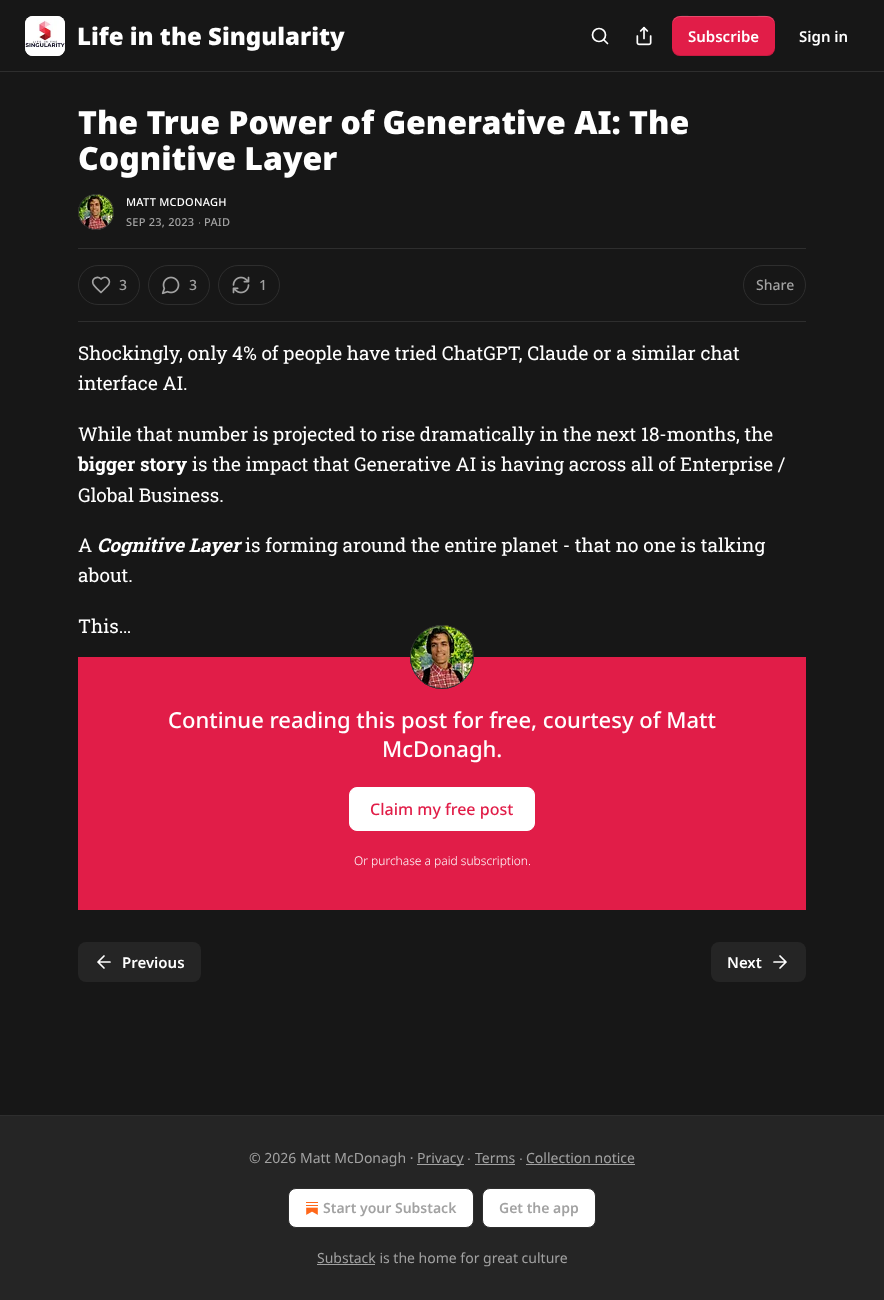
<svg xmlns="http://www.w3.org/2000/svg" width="884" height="1300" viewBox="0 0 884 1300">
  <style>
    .t1 { font: 900 24px Noto Sans; fill: #fff; }
    .t2 { font: 600 15px Noto Sans; fill: #fff; }
    .t3 { font: 900 32px Noto Sans; fill: #fff; }
    .t4 { font: 500 11px Noto Sans; letter-spacing: 0.25px; fill: #fff; }
    .t5 { font: 500 11px Noto Sans; letter-spacing: 0.25px; fill: #a2a2a2; }
    .t6 { font: 11px Liberation Sans; letter-spacing: 0.25px; fill: #a2a2a2; }
    .t7 { font: 500 14px Noto Sans; fill: #a2a2a2; }
    .t8 { font: 19px Roboto Slab; fill: #fff; }
    .t9 { font: bold 19px Roboto Slab; fill: #fff; }
    .t10 { font: italic bold 19px Roboto Slab; fill: #fff; }
    .t11 { font: 500 22px Noto Sans; fill: #fff; }
    .t12 { font: 500 16px Noto Sans; fill: #e11d48; }
    .t13 { font: 300 12px Noto Sans; fill: #fff; }
    .t14 { font: 14px Noto Sans; fill: #a2a2a2; }
    .t15 { font: 14px Liberation Sans; fill: #a2a2a2; }
    .t16 { font: 600 14px Noto Sans; fill: #a2a2a2; }
  </style>
  <rect width="100%" height="100%" fill="#171717"/>
  <rect x="0" y="71" width="884" height="1" fill="#2e2e2e"/>
  <rect x="25" y="16" width="40" height="40" rx="8" fill="#fff"/>
  <image x="25" y="16" width="40" height="40" href="images/1.png"/>
  <text x="77" y="45" class="t1">Life in the Singularity</text>
  <circle cx="599" cy="35" r="6.5" fill="none" stroke="#fff" stroke-width="1.7"/>
  <path d="M607.5 43.5L604 40" fill="none" stroke="#fff" stroke-width="1.7" stroke-linecap="round" stroke-linejoin="round"/>
  <image x="636" y="26" width="16" height="20" href="images/2.png"/>
  <rect x="672" y="16" width="103" height="40" rx="8" fill="#e11d48"/>
  <path d="M672 47C672 59 686 56 694 56H752C761 56 775 59 775 47C775 51 771 55 767 55H680C676 55 672 51 672 47Z" fill="#0000001a"/>
  <path d="M680 17H767C771 17 775 21 775 25C775 13 761 16 752 16H694C686 16 672 13 672 25C672 21 676 17 680 17Z" fill="#ffffff33"/>
  <text x="688" y="42" class="t2">Subscribe</text>
  <text x="799" y="42" class="t2">Sign in</text>
  <text x="78" y="134" class="t3">The True Power of Generative AI: The</text>
  <text x="78" y="170" class="t3">Cognitive Layer</text>
  <circle cx="96" cy="212" r="17.5" fill="none" stroke="#2e2e2e"/>
  <image x="78" y="194" width="36" height="36" href="images/3.png"/>
  <circle cx="96" cy="212" r="17.5" fill="none" stroke="#2e2e2e"/>
  <text x="126" y="206" class="t4">MATT MCDONAGH</text>
  <text x="126" y="226" class="t5">SEP 23, 2023</text>
  <text x="198" y="226" class="t6">∙</text>
  <text x="204" y="226" class="t5">PAID</text>
  <rect x="78" y="248" width="728" height="1" fill="#2e2e2e"/>
  <rect x="78" y="321" width="728" height="1" fill="#2e2e2e"/>
  <rect x="78.5" y="265.5" width="61" height="39" rx="19.5" fill="none" stroke="#2e2e2e"/>
  <path d="M107 286.5C113 280.5 106 274.5 101 279C97.5 275.5 91.5 278.5 93 283.5C94 286.5 99 290.5 101 292.5Z" fill="none" stroke="#a2a2a2" stroke-width="1.7" stroke-linecap="round" stroke-linejoin="round"/>
  <text x="119" y="290" class="t7">3</text>
  <rect x="148.5" y="265.5" width="61" height="39" rx="19.5" fill="none" stroke="#2e2e2e"/>
  <image x="161" y="276" width="19" height="19" href="images/4.png"/>
  <text x="189" y="290" class="t7">3</text>
  <rect x="218.5" y="265.5" width="61" height="39" rx="19.5" fill="none" stroke="#2e2e2e"/>
  <image x="232" y="276" width="18" height="18" href="images/5.png"/>
  <text x="259" y="290" class="t7">1</text>
  <rect x="743.5" y="265.5" width="62" height="39" rx="19.5" fill="none" stroke="#2e2e2e"/>
  <text x="756" y="290" class="t7">Share</text>
  <text x="78" y="360" class="t8">Shockingly, only 4% of people have tried ChatGPT, Claude or a similar chat</text>
  <text x="78" y="390" class="t8">interface AI.</text>
  <text x="78" y="441" class="t8">While that number is projected to rise dramatically in the next 18-months, the</text>
  <text x="78" y="471" class="t9">bigger story</text>
  <text x="192" y="471" class="t8">is the impact that Generative AI is having across all of Enterprise /</text>
  <text x="78" y="502" class="t8">Global Business.</text>
  <text x="78" y="552" class="t8">A</text>
  <text x="97" y="552" class="t10">Cognitive Layer</text>
  <text x="245" y="552" class="t8">is forming around the entire planet - that no one is talking</text>
  <text x="78" y="582" class="t8">about.</text>
  <text x="78" y="633" class="t8">This…</text>
  <rect x="78" y="657" width="728" height="253" fill="#e11d48"/>
  <circle cx="442" cy="657" r="31.5" fill="none" stroke="#2e2e2e"/>
  <image x="410" y="625" width="64" height="64" href="images/6.png"/>
  <circle cx="442" cy="657" r="31.5" fill="none" stroke="#2e2e2e"/>
  <text x="168" y="728" class="t11">Continue reading this post for free, courtesy of Matt</text>
  <text x="382" y="757" class="t11">McDonagh.</text>
  <rect x="349.5" y="787.5" width="185" height="43" rx="7.5" fill="#fff" stroke="#fff"/>
  <text x="370" y="815" class="t12">Claim my free post</text>
  <text x="354" y="865" class="t13">Or purchase a paid subscription.</text>
  <rect x="78" y="942" width="123" height="40" rx="8" fill="#252525"/>
  <path d="M104 968L98 962L104 956M110 962H98" fill="none" stroke="#fff" stroke-width="1.7" stroke-linecap="round" stroke-linejoin="round"/>
  <text x="122" y="968" class="t2">Previous</text>
  <rect x="711" y="942" width="95" height="40" rx="8" fill="#252525"/>
  <text x="727" y="968" class="t2">Next</text>
  <path d="M774 962H786M780 956L786 962L780 968" fill="none" stroke="#fff" stroke-width="1.7" stroke-linecap="round" stroke-linejoin="round"/>
  <rect x="0" y="1116" width="884" height="184" fill="#252525"/>
  <rect x="0" y="1115" width="884" height="1" fill="#2e2e2e"/>
  <text x="249" y="1163" class="t14">© 2026 Matt McDonagh ·</text>
  <rect x="417" y="1164" width="47" height="1" fill="#a2a2a2"/>
  <text x="417" y="1163" class="t14">Privacy</text>
  <text x="467" y="1163" class="t15">∙</text>
  <text x="475" y="1163" class="t14">Terms</text>
  <rect x="475" y="1164" width="40" height="1" fill="#a2a2a2"/>
  <text x="519" y="1163" class="t15">∙</text>
  <text x="526" y="1163" class="t14">Collection notice</text>
  <rect x="526" y="1164" width="109" height="1" fill="#a2a2a2"/>
  <rect x="288.5" y="1188.5" width="185" height="39" rx="7.5" fill="#fff" stroke="#2e2e2e"/>
  <image x="306" y="1202" width="12" height="13" href="images/7.png"/>
  <text x="323" y="1213" class="t16">Start your Substack</text>
  <rect x="482.5" y="1188.5" width="113" height="39" rx="7.5" fill="#fff" stroke="#2e2e2e"/>
  <text x="499" y="1213" class="t16">Get the app</text>
  <rect x="317" y="1264" width="58" height="1" fill="#a2a2a2"/>
  <text x="317" y="1263" class="t14">Substack is the home for great culture</text>
</svg>
